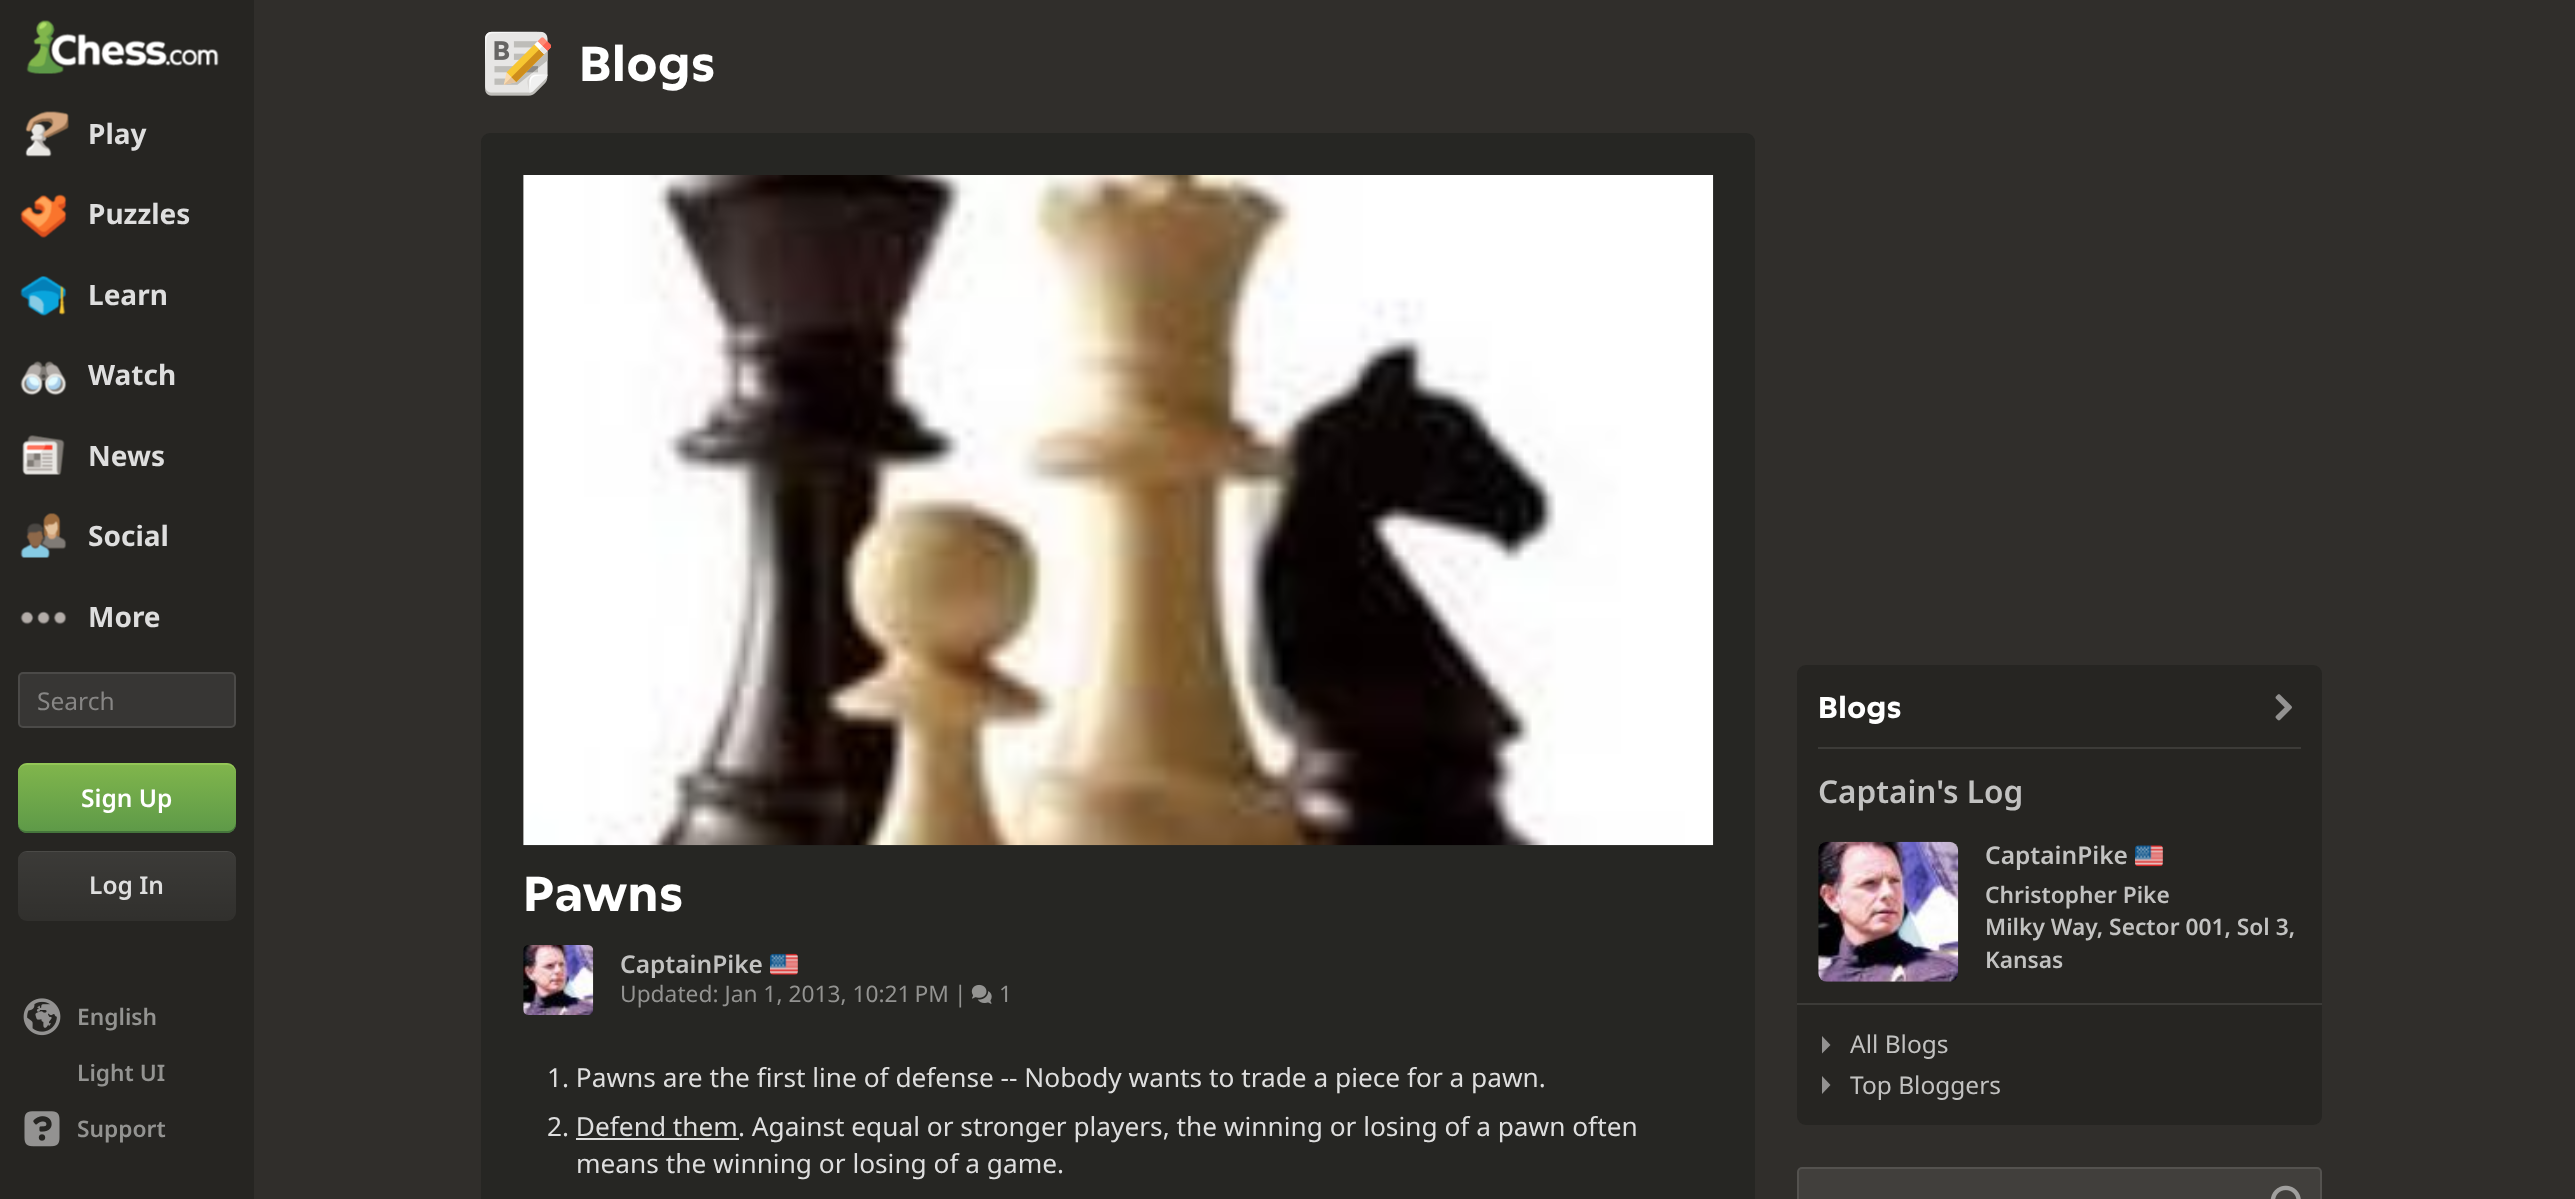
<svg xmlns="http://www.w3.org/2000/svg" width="2575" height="1199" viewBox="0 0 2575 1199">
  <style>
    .t1 { font: bold 28px Noto Sans; fill: #dedede; }
    .t2 { font: 24.5px Noto Sans; fill: #878685; }
    .t3 { font: 600 24.5px Noto Sans; fill: #fff; }
    .t4 { font: 600 24.5px Noto Sans; fill: #dedede; }
    .t5 { font: 600 22.75px Noto Sans; fill: #939391; }
    .t6 { font: bold 49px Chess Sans; fill: #fff; }
    .t7 { font: 600 24.5px Noto Sans; fill: #c2c2c1; }
    .t8 { font: 22.75px Noto Sans; fill: #939391; }
    .t9 { font: 26.25px Noto Sans; fill: #dedede; }
    .t10 { font: bold 30px Chess Sans; fill: #fff; }
    .t11 { font: 600 31.5px Noto Sans; fill: #c2c2c1; }
    .t12 { font: 600 22.75px Noto Sans; fill: #c2c2c1; }
    .t13 { font: 24.5px Noto Sans; fill: #c2c2c1; }
  </style>
  <defs>
    <linearGradient id="g1" gradientUnits="userSpaceOnUse" x1="127" y1="763" x2="127" y2="833"><stop offset="0" stop-color="#81b64c"/><stop offset="1" stop-color="#5d9948"/></linearGradient>
    <linearGradient id="g2" gradientUnits="userSpaceOnUse" x1="127" y1="851" x2="127" y2="921"><stop offset="0" stop-color="#fff" stop-opacity="0.1"/><stop offset="1" stop-color="#fff" stop-opacity="0.05"/></linearGradient>
    <clipPath id="clip1"><rect x="620" y="950" width="143" height="28"/></clipPath>
  </defs>
  <rect width="100%" height="100%" fill="#302e2b"/>
  <rect x="0" y="0" width="254" height="1199" fill="#262522"/>
  <image x="26" y="20" width="193" height="54" href="images/1.png"/>
  <image x="25" y="111" width="44" height="46" href="images/2.png"/>
  <text x="88" y="144" class="t1">Play</text>
  <image x="20" y="194" width="47" height="44" href="images/3.png"/>
  <text x="88" y="224" class="t1">Puzzles</text>
  <image x="20" y="276" width="47" height="40" href="images/4.png"/>
  <text x="88" y="305" class="t1">Learn</text>
  <image x="20" y="361" width="47" height="35" href="images/5.png"/>
  <text x="88" y="385" class="t1">Watch</text>
  <image x="22" y="435" width="43" height="40" href="images/6.png"/>
  <text x="88" y="466" class="t1">News</text>
  <image x="20" y="513" width="47" height="45" href="images/7.png"/>
  <text x="88" y="546" class="t1">Social</text>
  <image x="20" y="611" width="47" height="14" href="images/8.png"/>
  <text x="88" y="627" class="t1">More</text>
  <rect x="18" y="672" width="218" height="56" rx="5" fill="#373634"/>
  <rect x="19" y="673" width="216" height="54" rx="4" fill="none" stroke="#ffffff1a" stroke-width="2"/>
  <text x="37" y="710" class="t2">Search</text>
  <rect x="18" y="763" width="218" height="70" rx="9" fill="url(#g1)"/>
  <path d="M18 822V824C18 829 22 833 27 833H227C232 833 236 829 236 824V822C236 827 232 831 228 831H26C21 831 18 827 18 822Z" fill="#45753c"/>
  <path d="M26 765H228C232 765 236 769 236 774V772C236 767 232 763 227 763H27C22 763 18 767 18 772V774C18 769 21 765 26 765Z" fill="#b2e06866"/>
  <text x="81" y="807" class="t3">Sign Up</text>
  <rect x="18" y="851" width="218" height="70" rx="9" fill="url(#g2)"/>
  <path d="M26 852H228C232 852 236 856 236 861V860C236 855 232 851 227 851H27C22 851 18 855 18 860V861C18 856 21 852 26 852Z" fill="#ffffff14"/>
  <text x="89" y="894" class="t4">Log In</text>
  <image x="23" y="998" width="38" height="38" href="images/9.png"/>
  <text x="77" y="1025" class="t5">English</text>
  <text x="77" y="1081" class="t5">Light UI</text>
  <image x="24" y="1111" width="36" height="36" href="images/10.png"/>
  <text x="77" y="1137" class="t5">Support</text>
  <image x="485" y="31" width="66" height="65" href="images/11.png"/>
  <text x="579" y="81" class="t6">Blogs</text>
  <rect x="481" y="133" width="1274" height="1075" rx="9" fill="#262623"/>
  <rect x="523" y="175" width="1" height="670" fill="#3c3c39"/>
  <image x="523" y="175" width="1191" height="671" href="images/12.png"/>
  <text x="523" y="911" class="t6">Pawns</text>
  <image x="523" y="945" width="71" height="70" href="images/13.png"/>
  <g clip-path="url(#clip1)">
    <text x="620" y="973" class="t7">CaptainPike</text>
  </g>
  <image x="769" y="953" width="29" height="22" href="images/14.png"/>
  <text x="620" y="1002" class="t8">Updated: Jan 1, 2013, 10:21 PM</text>
  <text x="954" y="1002" class="t8">|</text>
  <image x="971" y="984" width="21" height="20" href="images/15.png"/>
  <text x="999" y="1002" class="t8">1</text>
  <text x="547" y="1087" class="t9">1. Pawns are the first line of defense -- Nobody wants to trade a piece for a pawn.</text>
  <text x="547" y="1136" class="t9">2. Defend them. Against equal or stronger players, the winning or losing of a pawn often</text>
  <rect x="576" y="1138" width="163" height="2" fill="#dedede"/>
  <text x="576" y="1173" class="t9">means the winning or losing of a game.</text>
  <rect x="1797" y="665" width="525" height="460" rx="9" fill="#262522"/>
  <text x="1818" y="718" class="t10">Blogs</text>
  <image x="2275" y="694" width="17" height="27" href="images/16.png"/>
  <rect x="1818" y="747" width="483" height="2" fill="#3c3b38"/>
  <rect x="1797" y="1003" width="525" height="2" fill="#3c3b38"/>
  <text x="1818" y="803" class="t11">Captain's Log</text>
  <image x="1818" y="841" width="141" height="141" href="images/17.png"/>
  <text x="1985" y="864" class="t7">CaptainPike</text>
  <image x="2135" y="845" width="28" height="22" href="images/18.png"/>
  <text x="1985" y="903" class="t12">Christopher Pike</text>
  <text x="1985" y="935" class="t12">Milky Way, Sector 001, Sol 3,</text>
  <text x="1985" y="968" class="t12">Kansas</text>
  <path d="M1822 1053.5V1036L1830.5 1045Z" fill="#939291"/>
  <text x="1850" y="1053" class="t13">All Blogs</text>
  <path d="M1822 1094V1076L1830.5 1085Z" fill="#939291"/>
  <text x="1850" y="1094" class="t13">Top Bloggers</text>
  <rect x="1797" y="1167" width="525" height="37" rx="5" fill="#413f3c"/>
  <rect x="1798" y="1168" width="523" height="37" rx="4" fill="none" stroke="#ffffff1a" stroke-width="2"/>
  <image x="2270" y="1185" width="31" height="14" href="images/19.png"/>
</svg>
